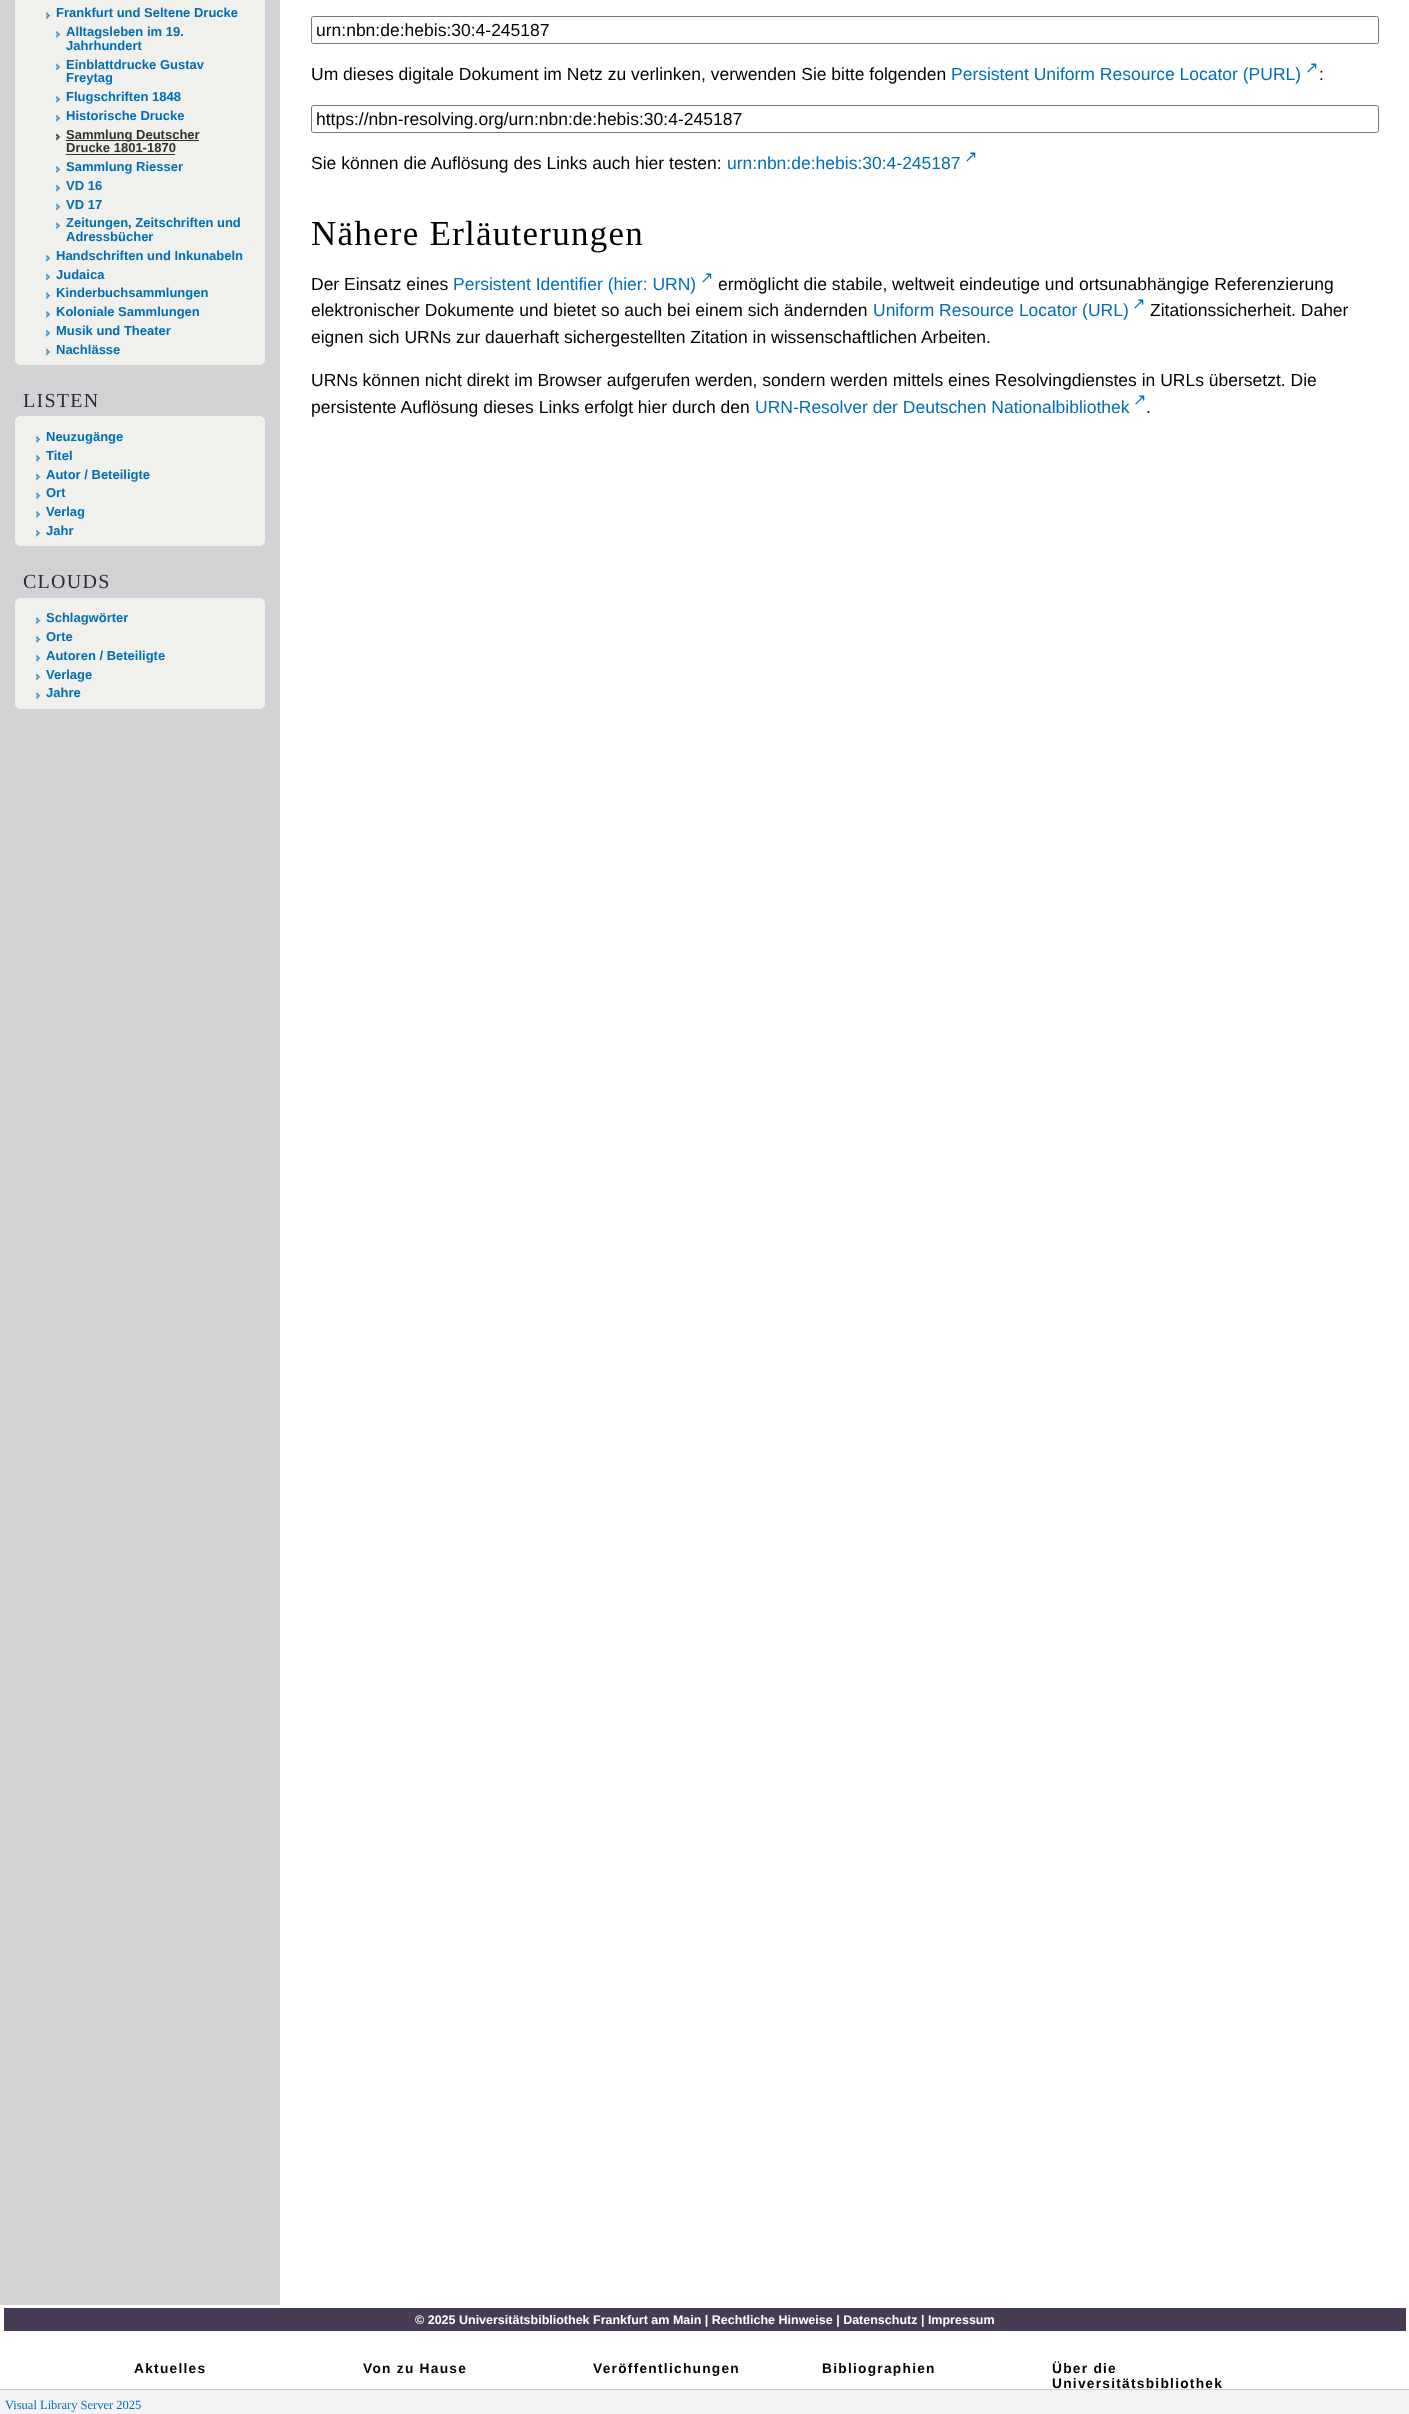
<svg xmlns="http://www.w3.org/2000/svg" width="1409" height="2414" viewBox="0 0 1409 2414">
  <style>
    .t1 { font: bold 13px Liberation Sans; fill: #006db5; }
    .t2 { font: bold 13px Liberation Sans; fill: #303030; }
    .t3 { font: 20px Liberation Serif; letter-spacing: 1.25px; fill: #332636; }
    .t4 { font: 17.5px Liberation Sans; fill: #000; }
    .t5 { font: 17.5px Liberation Sans; fill: #006db5; }
    .t6 { font: 16px DejaVu Sans; fill: #006db5; }
    .t7 { font: 35px Liberation Serif; letter-spacing: 1.25px; fill: #000; }
    .t8 { font: bold 12.5px Liberation Sans; fill: #fff; }
    .t9 { font: bold 13.75px Liberation Sans; letter-spacing: 1.25px; fill: #000; }
    .t10 { font: 12.5px Liberation Serif; fill: #006db5; }
  </style>
  <rect width="100%" height="100%" fill="#fff"/>
  <rect x="0" y="0" width="280" height="2305" fill="#d1d2d4"/>
  <rect x="15.5" y="-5.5" width="249" height="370" rx="4.5" fill="#f0f0ec" stroke="#f0f0ec"/>
  <image x="46" y="0" width="2" height="1" href="images/1.png"/>
  <image x="46" y="12" width="5" height="7" href="images/2.png"/>
  <text x="56" y="17" class="t1">Frankfurt und Seltene Drucke</text>
  <image x="56" y="31" width="5" height="7" href="images/3.png"/>
  <text x="66" y="36" class="t1">Alltagsleben im 19.</text>
  <text x="66" y="50" class="t1">Jahrhundert</text>
  <image x="56" y="63" width="5" height="8" href="images/4.png"/>
  <text x="66" y="69" class="t1">Einblattdrucke Gustav</text>
  <text x="66" y="82" class="t1">Freytag</text>
  <image x="56" y="96" width="5" height="7" href="images/3.png"/>
  <text x="66" y="101" class="t1">Flugschriften 1848</text>
  <image x="56" y="114" width="5" height="8" href="images/5.png"/>
  <text x="66" y="120" class="t1">Historische Drucke</text>
  <image x="56" y="133" width="5" height="8" href="images/6.png"/>
  <rect x="66" y="140" width="133" height="1" fill="#303030"/>
  <text x="66" y="139" class="t2">Sammlung Deutscher</text>
  <text x="66" y="152" class="t2">Drucke 1801-1870</text>
  <rect x="66" y="154" width="109" height="1" fill="#303030"/>
  <image x="56" y="166" width="5" height="7" href="images/3.png"/>
  <text x="66" y="171" class="t1">Sammlung Riesser</text>
  <image x="56" y="184" width="5" height="8" href="images/5.png"/>
  <text x="66" y="190" class="t1">VD 16</text>
  <image x="56" y="203" width="5" height="8" href="images/4.png"/>
  <text x="66" y="209" class="t1">VD 17</text>
  <image x="56" y="222" width="5" height="7" href="images/2.png"/>
  <text x="66" y="227" class="t1">Zeitungen, Zeitschriften und</text>
  <text x="66" y="241" class="t1">Adressbücher</text>
  <image x="46" y="254" width="5" height="8" href="images/5.png"/>
  <text x="56" y="260" class="t1">Handschriften und Inkunabeln</text>
  <image x="46" y="273" width="5" height="8" href="images/4.png"/>
  <text x="56" y="279" class="t1">Judaica</text>
  <image x="46" y="292" width="5" height="7" href="images/2.png"/>
  <text x="56" y="297" class="t1">Kinderbuchsammlungen</text>
  <image x="46" y="311" width="5" height="7" href="images/7.png"/>
  <text x="56" y="316" class="t1">Koloniale Sammlungen</text>
  <image x="46" y="329" width="5" height="8" href="images/5.png"/>
  <text x="56" y="335" class="t1">Musik und Theater</text>
  <image x="46" y="348" width="5" height="8" href="images/4.png"/>
  <text x="56" y="354" class="t1">Nachlässe</text>
  <text x="23" y="407" class="t3">LISTEN</text>
  <rect x="15.5" y="416.5" width="249" height="129" rx="4.5" fill="#f0f0ec" stroke="#f0f0ec"/>
  <image x="36" y="436" width="5" height="7" href="images/3.png"/>
  <text x="46" y="441" class="t1">Neuzugänge</text>
  <image x="36" y="454" width="5" height="8" href="images/5.png"/>
  <text x="46" y="460" class="t1">Titel</text>
  <image x="36" y="473" width="5" height="8" href="images/4.png"/>
  <text x="46" y="479" class="t1">Autor / Beteiligte</text>
  <image x="36" y="492" width="5" height="7" href="images/2.png"/>
  <text x="46" y="497" class="t1">Ort</text>
  <image x="36" y="511" width="5" height="7" href="images/8.png"/>
  <text x="46" y="516" class="t1">Verlag</text>
  <image x="36" y="529" width="5" height="8" href="images/5.png"/>
  <text x="46" y="535" class="t1">Jahr</text>
  <text x="23" y="588" class="t3">CLOUDS</text>
  <rect x="15.5" y="598.5" width="249" height="110" rx="4.5" fill="#f0f0ec" stroke="#f0f0ec"/>
  <image x="36" y="617" width="5" height="7" href="images/2.png"/>
  <text x="46" y="622" class="t1">Schlagwörter</text>
  <image x="36" y="636" width="5" height="7" href="images/3.png"/>
  <text x="46" y="641" class="t1">Orte</text>
  <image x="36" y="654" width="5" height="8" href="images/5.png"/>
  <text x="46" y="660" class="t1">Autoren / Beteiligte</text>
  <image x="36" y="673" width="5" height="8" href="images/4.png"/>
  <text x="46" y="679" class="t1">Verlage</text>
  <image x="36" y="692" width="5" height="7" href="images/2.png"/>
  <text x="46" y="697" class="t1">Jahre</text>
  <rect x="311.5" y="16.5" width="1067" height="27" rx="2" fill="none" stroke="#767676"/>
  <text x="316" y="36" class="t4">urn:nbn:de:hebis:30:4-245187</text>
  <text x="311" y="80" class="t4">Um dieses digitale Dokument im Netz zu verlinken, verwenden Sie bitte folgenden</text>
  <text x="951" y="80" class="t5">Persistent Uniform Resource Locator (PURL)</text>
  <text x="1305" y="73" class="t6">↗</text>
  <text x="1319" y="80" class="t4">:</text>
  <rect x="311.5" y="105.5" width="1067" height="27" rx="2" fill="none" stroke="#767676"/>
  <text x="316" y="125" class="t4">https://nbn-resolving.org/urn:nbn:de:hebis:30:4-245187</text>
  <text x="311" y="169" class="t4">Sie können die Auflösung des Links auch hier testen:</text>
  <text x="727" y="169" class="t5">urn:nbn:de:hebis:30:4-245187</text>
  <text x="964" y="162" class="t6">↗</text>
  <text x="311" y="245" class="t7">Nähere Erläuterungen</text>
  <text x="311" y="290" class="t4">Der Einsatz eines</text>
  <text x="453" y="290" class="t5">Persistent Identifier (hier: URN)</text>
  <text x="700" y="283" class="t6">↗</text>
  <text x="718" y="290" class="t4">ermöglicht die stabile, weltweit eindeutige und ortsunabhängige Referenzierung</text>
  <text x="311" y="316" class="t4">elektronischer Dokumente und bietet so auch bei einem sich ändernden</text>
  <text x="873" y="316" class="t5">Uniform Resource Locator (URL)</text>
  <text x="1132" y="309" class="t6">↗</text>
  <text x="1150" y="316" class="t4">Zitationssicherheit. Daher</text>
  <text x="311" y="343" class="t4">eignen sich URNs zur dauerhaft sichergestellten Zitation in wissenschaftlichen Arbeiten.</text>
  <text x="311" y="386" class="t4">URNs können nicht direkt im Browser aufgerufen werden, sondern werden mittels eines Resolvingdienstes in URLs übersetzt. Die</text>
  <text x="311" y="413" class="t4">persistente Auflösung dieses Links erfolgt hier durch den</text>
  <text x="755" y="413" class="t5">URN-Resolver der Deutschen Nationalbibliothek</text>
  <text x="1133" y="405" class="t6">↗</text>
  <text x="1146" y="413" class="t4">.</text>
  <rect x="4" y="2308" width="1402" height="23" fill="#483b56"/>
  <text x="415" y="2324" class="t8">© 2025 Universitätsbibliothek Frankfurt am Main | Rechtliche Hinweise | Datenschutz | Impressum</text>
  <text x="134" y="2373" class="t9">Aktuelles</text>
  <text x="363" y="2373" class="t9">Von zu Hause</text>
  <text x="593" y="2373" class="t9">Veröffentlichungen</text>
  <text x="822" y="2373" class="t9">Bibliographien</text>
  <text x="1052" y="2373" class="t9">Über die</text>
  <text x="1052" y="2388" class="t9">Universitätsbibliothek</text>
  <rect x="0" y="2390" width="1409" height="24" fill="#f3f3f6"/>
  <rect x="0" y="2389" width="1409" height="1" fill="#ccc"/>
  <text x="5" y="2409" class="t10">Visual Library Server 2025</text>
</svg>
